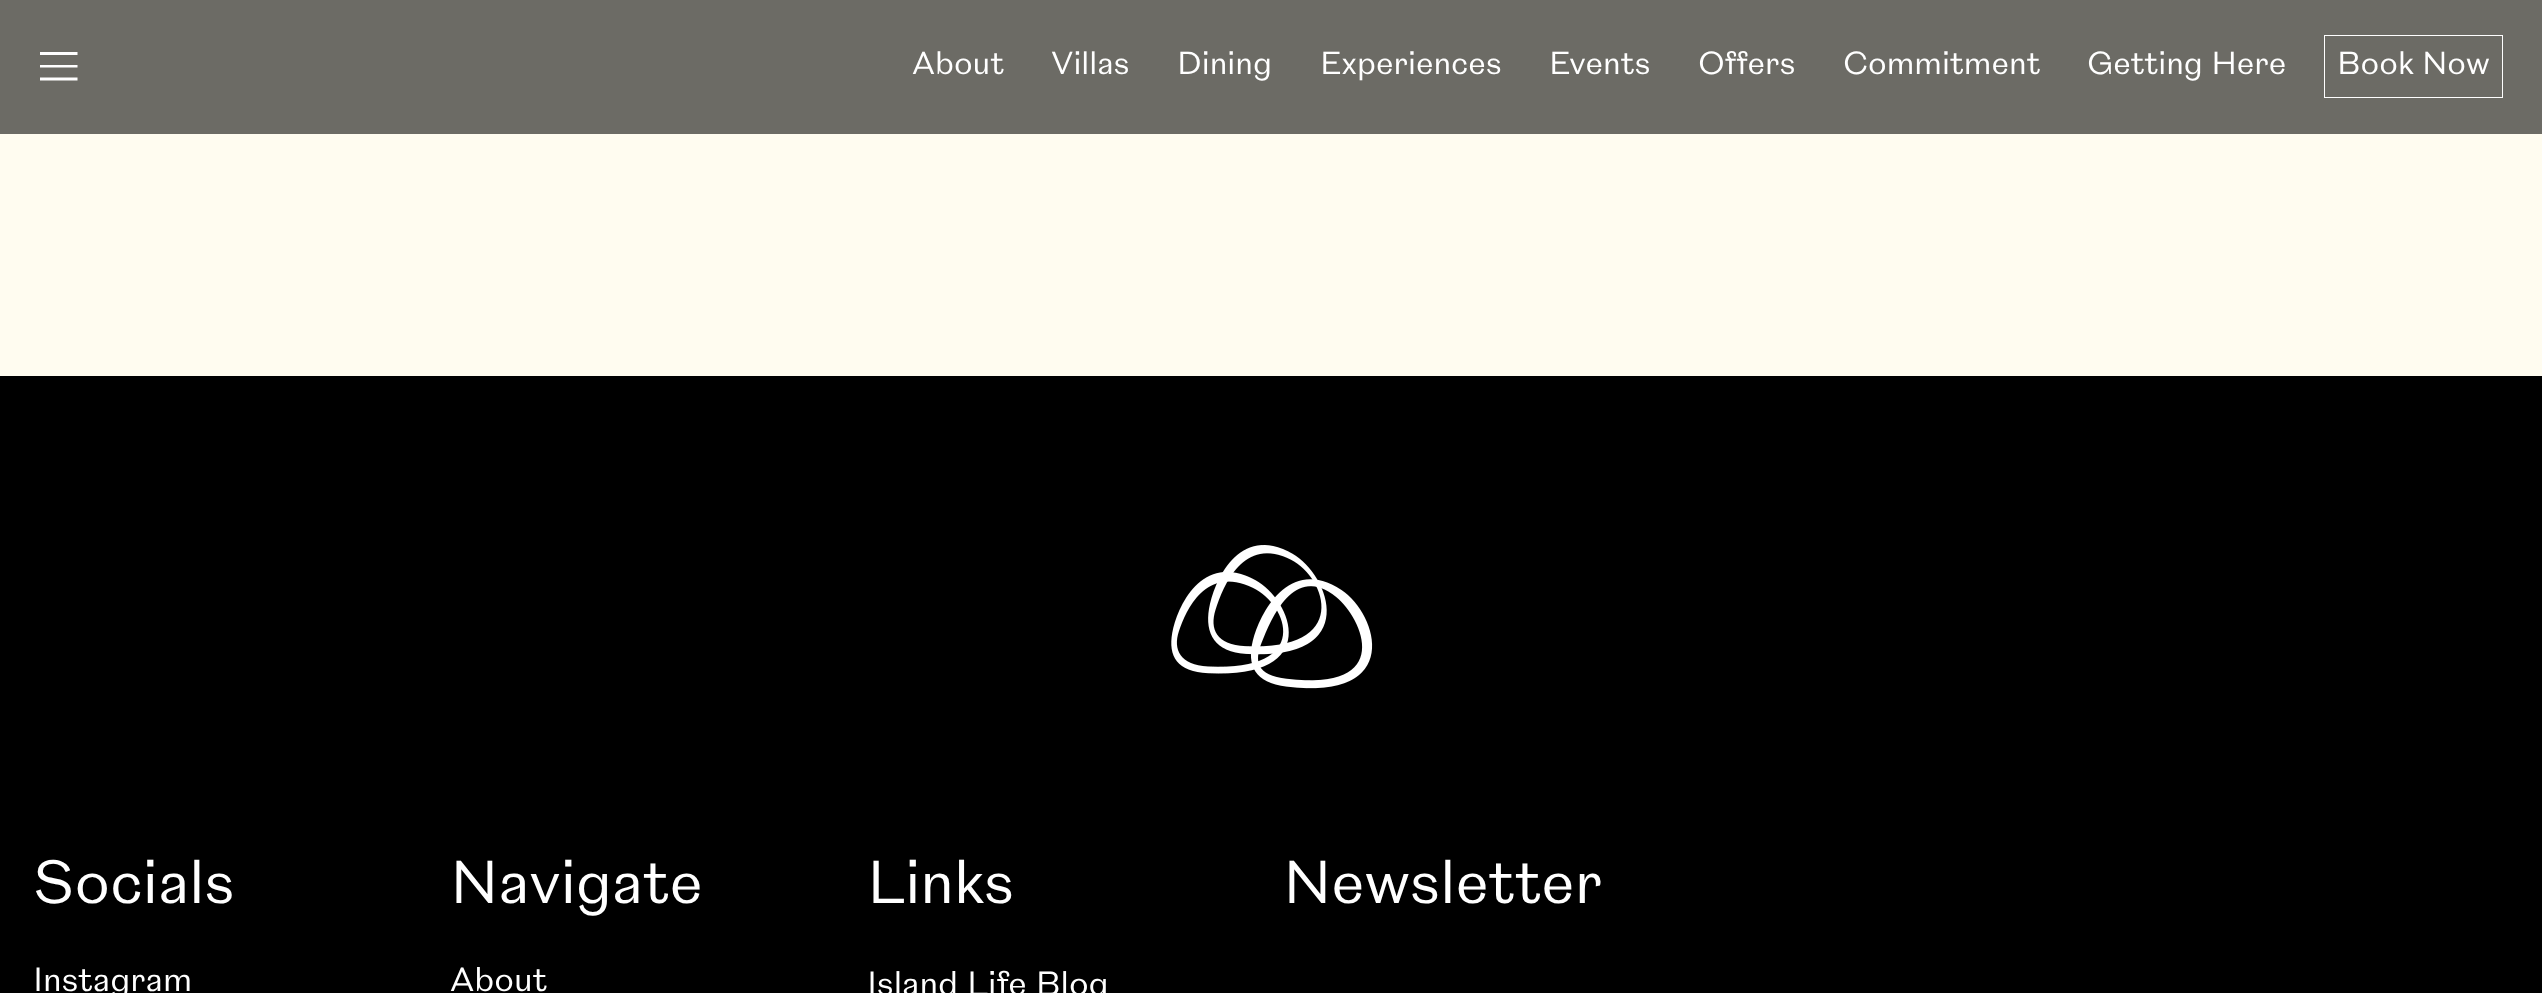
<svg xmlns="http://www.w3.org/2000/svg" width="2542" height="993" viewBox="0 0 2542 993">
  <style>
    .t1 { font: 31.75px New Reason; fill: #fff; }
    .t2 { font: 60.5px New Reason; fill: #fff; }
    .t3 { font: 33.5px New Reason; fill: #fff; }
  </style>
  <rect width="100%" height="100%" fill="#fffcf0"/>
  <rect x="0" y="0" width="2542" height="134" fill="#6c6b65"/>
  <path d="M77.5 55H40V52H77.5ZM77.5 67.5H40V65H77.5ZM77.5 80.5H40V77.5H77.5Z" fill="#fff" fill-rule="evenodd"/>
  <text x="912" y="74" class="t1">About</text>
  <text x="1051" y="74" class="t1">Villas</text>
  <text x="1177" y="74" class="t1">Dining</text>
  <text x="1320" y="74" class="t1">Experiences</text>
  <text x="1549" y="74" class="t1">Events</text>
  <text x="1698" y="74" class="t1">Offers</text>
  <text x="1843" y="74" class="t1">Commitment</text>
  <text x="2087" y="74" class="t1">Getting Here</text>
  <rect x="2324.5" y="35.5" width="178" height="62" fill="none" stroke="#fff"/>
  <text x="2337" y="74" class="t1">Book Now</text>
  <rect x="0" y="376" width="2542" height="617" fill="#000"/>
  <image x="1171" y="545" width="202" height="144" href="images/1.png"/>
  <text x="33" y="903" class="t2">Socials</text>
  <text x="33" y="991" class="t3">Instagram</text>
  <text x="450" y="903" class="t2">Navigate</text>
  <text x="450" y="991" class="t3">About</text>
  <text x="867" y="903" class="t2">Links</text>
  <text x="867" y="995" class="t3">Island Life Blog</text>
  <text x="1283" y="903" class="t2">Newsletter</text>
</svg>
